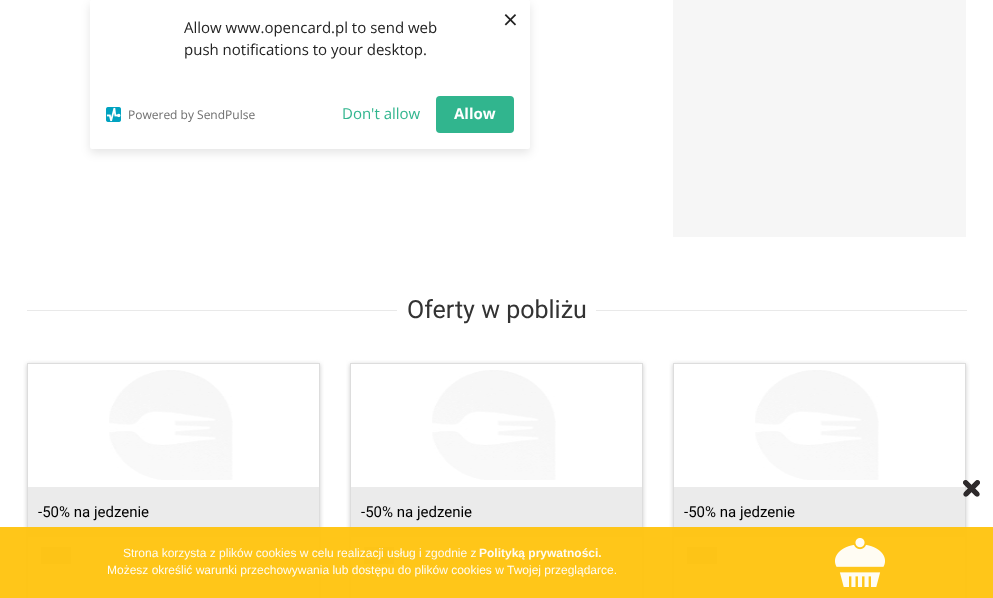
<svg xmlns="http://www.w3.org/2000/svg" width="993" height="598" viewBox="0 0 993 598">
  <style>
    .t1 { font: 15px Open Sans; fill: #222; }
    .t2 { font: 12px Open Sans; fill: #6f6f6f; }
    .t3 { font: 15px Open Sans; fill: #31b58e; }
    .t4 { font: bold 15px Open Sans; fill: #fff; }
    .t5 { font: 26px Open Sans; fill: #222; }
    .t6 { font: 25px Roboto; fill: #333; }
    .t7 { font: 15px Roboto; fill: #000; }
    .t8 { font: 12px Liberation Sans; fill: #fffcf3; }
    .t9 { font: bold 12px Liberation Sans; fill: #fffcf3; }
  </style>
  <defs>
    <clipPath id="clip1"><path d="M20 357H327V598H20ZM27 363H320V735H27Z" clip-rule="evenodd"/></clipPath>
    <clipPath id="clip2"><path d="M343 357H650V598H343ZM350 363H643V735H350Z" clip-rule="evenodd"/></clipPath>
    <clipPath id="clip3"><path d="M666 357H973V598H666ZM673 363H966V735H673Z" clip-rule="evenodd"/></clipPath>
  </defs>
  <rect width="100%" height="100%" fill="#fff"/>
  <rect x="90" y="4" width="440" height="149" rx="2" fill="#0000001a" filter="blur(5px)"/>
  <rect x="90" y="0" width="440" height="149" rx="2" fill="#fff"/>
  <text x="184" y="33" class="t1">Allow www.opencard.pl to send web</text>
  <text x="184" y="55" class="t1">push notifications to your desktop.</text>
  <image x="106" y="107" width="15" height="15" href="images/1.png"/>
  <text x="128" y="119" class="t2">Powered by SendPulse</text>
  <text x="342" y="119" class="t3">Don't allow</text>
  <rect x="436" y="96" width="78" height="37" rx="4" fill="#31b58e"/>
  <text x="454" y="119" class="t4">Allow</text>
  <text x="503" y="29" class="t5">×</text>
  <rect x="673" y="0" width="293" height="237" fill="#f6f6f6"/>
  <rect x="27" y="310" width="940" height="1" fill="#e9e9e9"/>
  <rect x="397" y="310" width="199" height="1" fill="#fff"/>
  <text x="407" y="318" class="t6">Oferty w pobliżu</text>
  <g clip-path="url(#clip1)">
    <rect x="27" y="364" width="293" height="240" fill="#ccc" filter="blur(2px)"/>
  </g>
  <rect x="27.5" y="363.5" width="292" height="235" fill="none" stroke="#ddd"/>
  <image x="109" y="370" width="124" height="110" href="images/2.png"/>
  <rect x="28" y="487" width="291" height="50" fill="#ebebeb"/>
  <text x="38" y="517" class="t7">-50% na jedzenie</text>
  <rect x="41" y="547" width="30" height="17" fill="#cdcdcd"/>
  <g clip-path="url(#clip2)">
    <rect x="350" y="364" width="293" height="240" fill="#ccc" filter="blur(2px)"/>
  </g>
  <rect x="350.5" y="363.5" width="292" height="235" fill="none" stroke="#ddd"/>
  <image x="432" y="370" width="124" height="110" href="images/2.png"/>
  <rect x="351" y="487" width="291" height="50" fill="#ebebeb"/>
  <text x="361" y="517" class="t7">-50% na jedzenie</text>
  <rect x="364" y="547" width="30" height="17" fill="#cdcdcd"/>
  <g clip-path="url(#clip3)">
    <rect x="673" y="364" width="293" height="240" fill="#ccc" filter="blur(2px)"/>
  </g>
  <rect x="673.5" y="363.5" width="292" height="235" fill="none" stroke="#ddd"/>
  <image x="755" y="370" width="124" height="110" href="images/2.png"/>
  <rect x="674" y="487" width="291" height="50" fill="#ebebeb"/>
  <text x="684" y="517" class="t7">-50% na jedzenie</text>
  <rect x="687" y="547" width="30" height="17" fill="#cdcdcd"/>
  <rect x="0" y="527" width="993" height="71" fill="#ffc30df2"/>
  <image x="963" y="480" width="17" height="17" href="images/3.png"/>
  <text x="123" y="557" class="t8">Strona korzysta z plików cookies w celu realizacji usług i zgodnie z</text>
  <text x="479" y="557" class="t9">Polityką prywatności.</text>
  <text x="107" y="574" class="t8">Możesz określić warunki przechowywania lub dostępu do plików cookies w Twojej przeglądarce.</text>
  <image x="835" y="538" width="50" height="49" href="images/4.png"/>
</svg>
